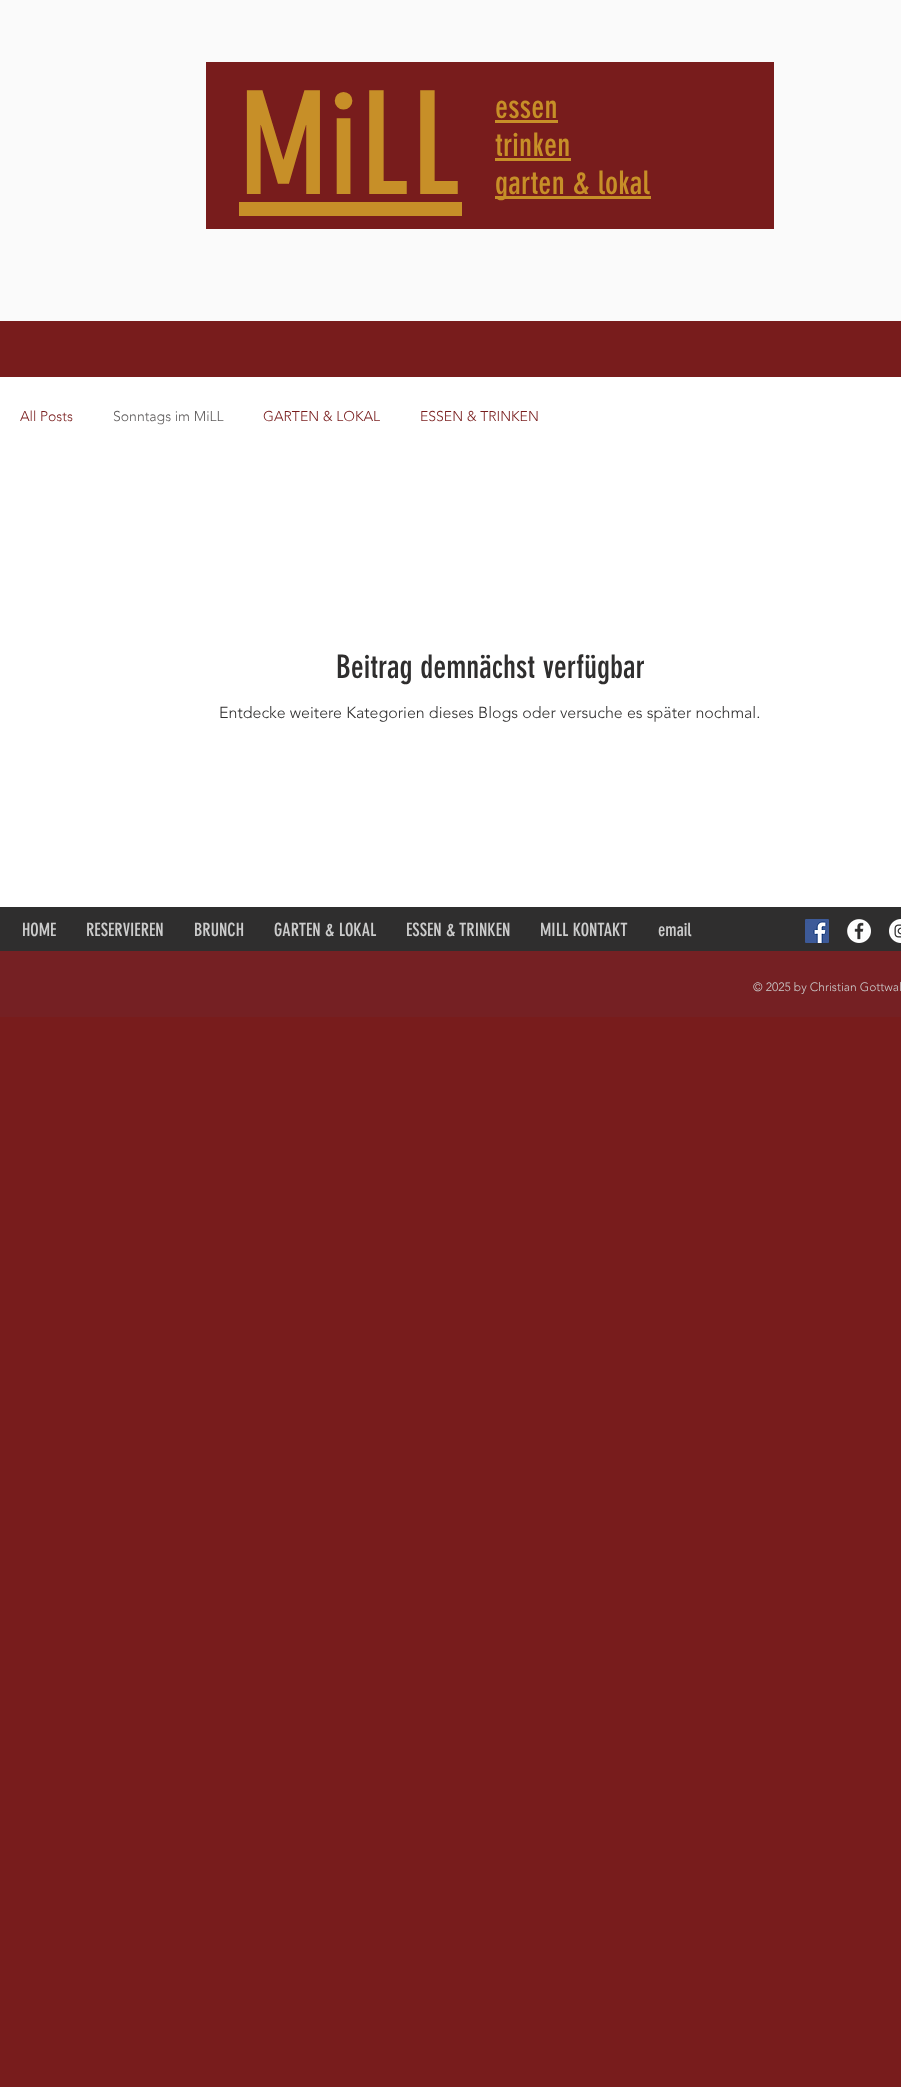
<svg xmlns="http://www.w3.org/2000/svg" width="901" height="2087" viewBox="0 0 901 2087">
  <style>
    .t1 { font: 141px 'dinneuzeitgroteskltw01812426'; letter-spacing: 1.5px; fill: #c78f28; }
    .t2 { font: 32px 'dinneuzeitgroteskltw01812426'; letter-spacing: 0.25px; fill: #c78f28; }
    .t3 { font: 300 14px 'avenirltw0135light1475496'; fill: #781c1c; }
    .t4 { font: 300 14px 'avenirltw0135light1475496'; fill: #605e5e; }
    .t5 { font: 32px 'dinneuzeitgroteskltw01812426'; fill: #2f2e2e; }
    .t6 { font: 300 16px 'avenirltw0135light1475496'; fill: #2f2e2e; }
    .t7 { font: 18px 'dinneuzeitgroteskltw01812426'; fill: #ccc; }
    .t8 { font: 300 12px 'avenirltw0135light1475496'; fill: #ccc; }
  </style>
  <rect width="100%" height="100%" fill="#781c1c"/>
  <rect x="0" y="0" width="901" height="321" fill="#fafafa"/>
  <rect x="206" y="62" width="568" height="167" fill="#781c1c"/>
  <text x="239" y="194" class="t1">MiLL</text>
  <rect x="239" y="202" width="223" height="14" fill="#c78f28"/>
  <text x="495" y="118" class="t2">essen</text>
  <rect x="495" y="120" width="63" height="3" fill="#c78f28"/>
  <text x="495" y="156" class="t2">trinken</text>
  <rect x="495" y="158" width="76" height="3" fill="#c78f28"/>
  <rect x="495" y="196" width="156" height="3" fill="#c78f28"/>
  <text x="495" y="194" class="t2">garten &amp; lokal</text>
  <rect x="0" y="377" width="901" height="530" fill="#fff"/>
  <text x="20" y="421" class="t3">All Posts</text>
  <text x="113" y="421" class="t4">Sonntags im MiLL</text>
  <text x="263" y="421" class="t3">GARTEN &amp; LOKAL</text>
  <text x="420" y="421" class="t3">ESSEN &amp; TRINKEN</text>
  <text x="336" y="678" class="t5">Beitrag demnächst verfügbar</text>
  <text x="219" y="718" class="t6">Entdecke weitere Kategorien dieses Blogs oder versuche es später nochmal.</text>
  <rect x="0" y="907" width="901" height="44" fill="#2f2e2e"/>
  <text x="22" y="936" class="t7">HOME</text>
  <text x="86" y="936" class="t7">RESERVIEREN</text>
  <text x="194" y="936" class="t7">BRUNCH</text>
  <text x="274" y="936" class="t7">GARTEN &amp; LOKAL</text>
  <text x="406" y="936" class="t7">ESSEN &amp; TRINKEN</text>
  <text x="540" y="936" class="t7">MILL KONTAKT</text>
  <text x="658" y="936" class="t7">email</text>
  <image x="805" y="919" width="24" height="24" href="images/1.png"/>
  <image x="847" y="919" width="24" height="24" href="images/2.png"/>
  <image x="889" y="919" width="12" height="24" href="images/3.png"/>
  <rect x="0" y="951" width="901" height="66" fill="#752023"/>
  <text x="753" y="991" class="t8">© 2025 by Christian Gottwal</text>
</svg>
